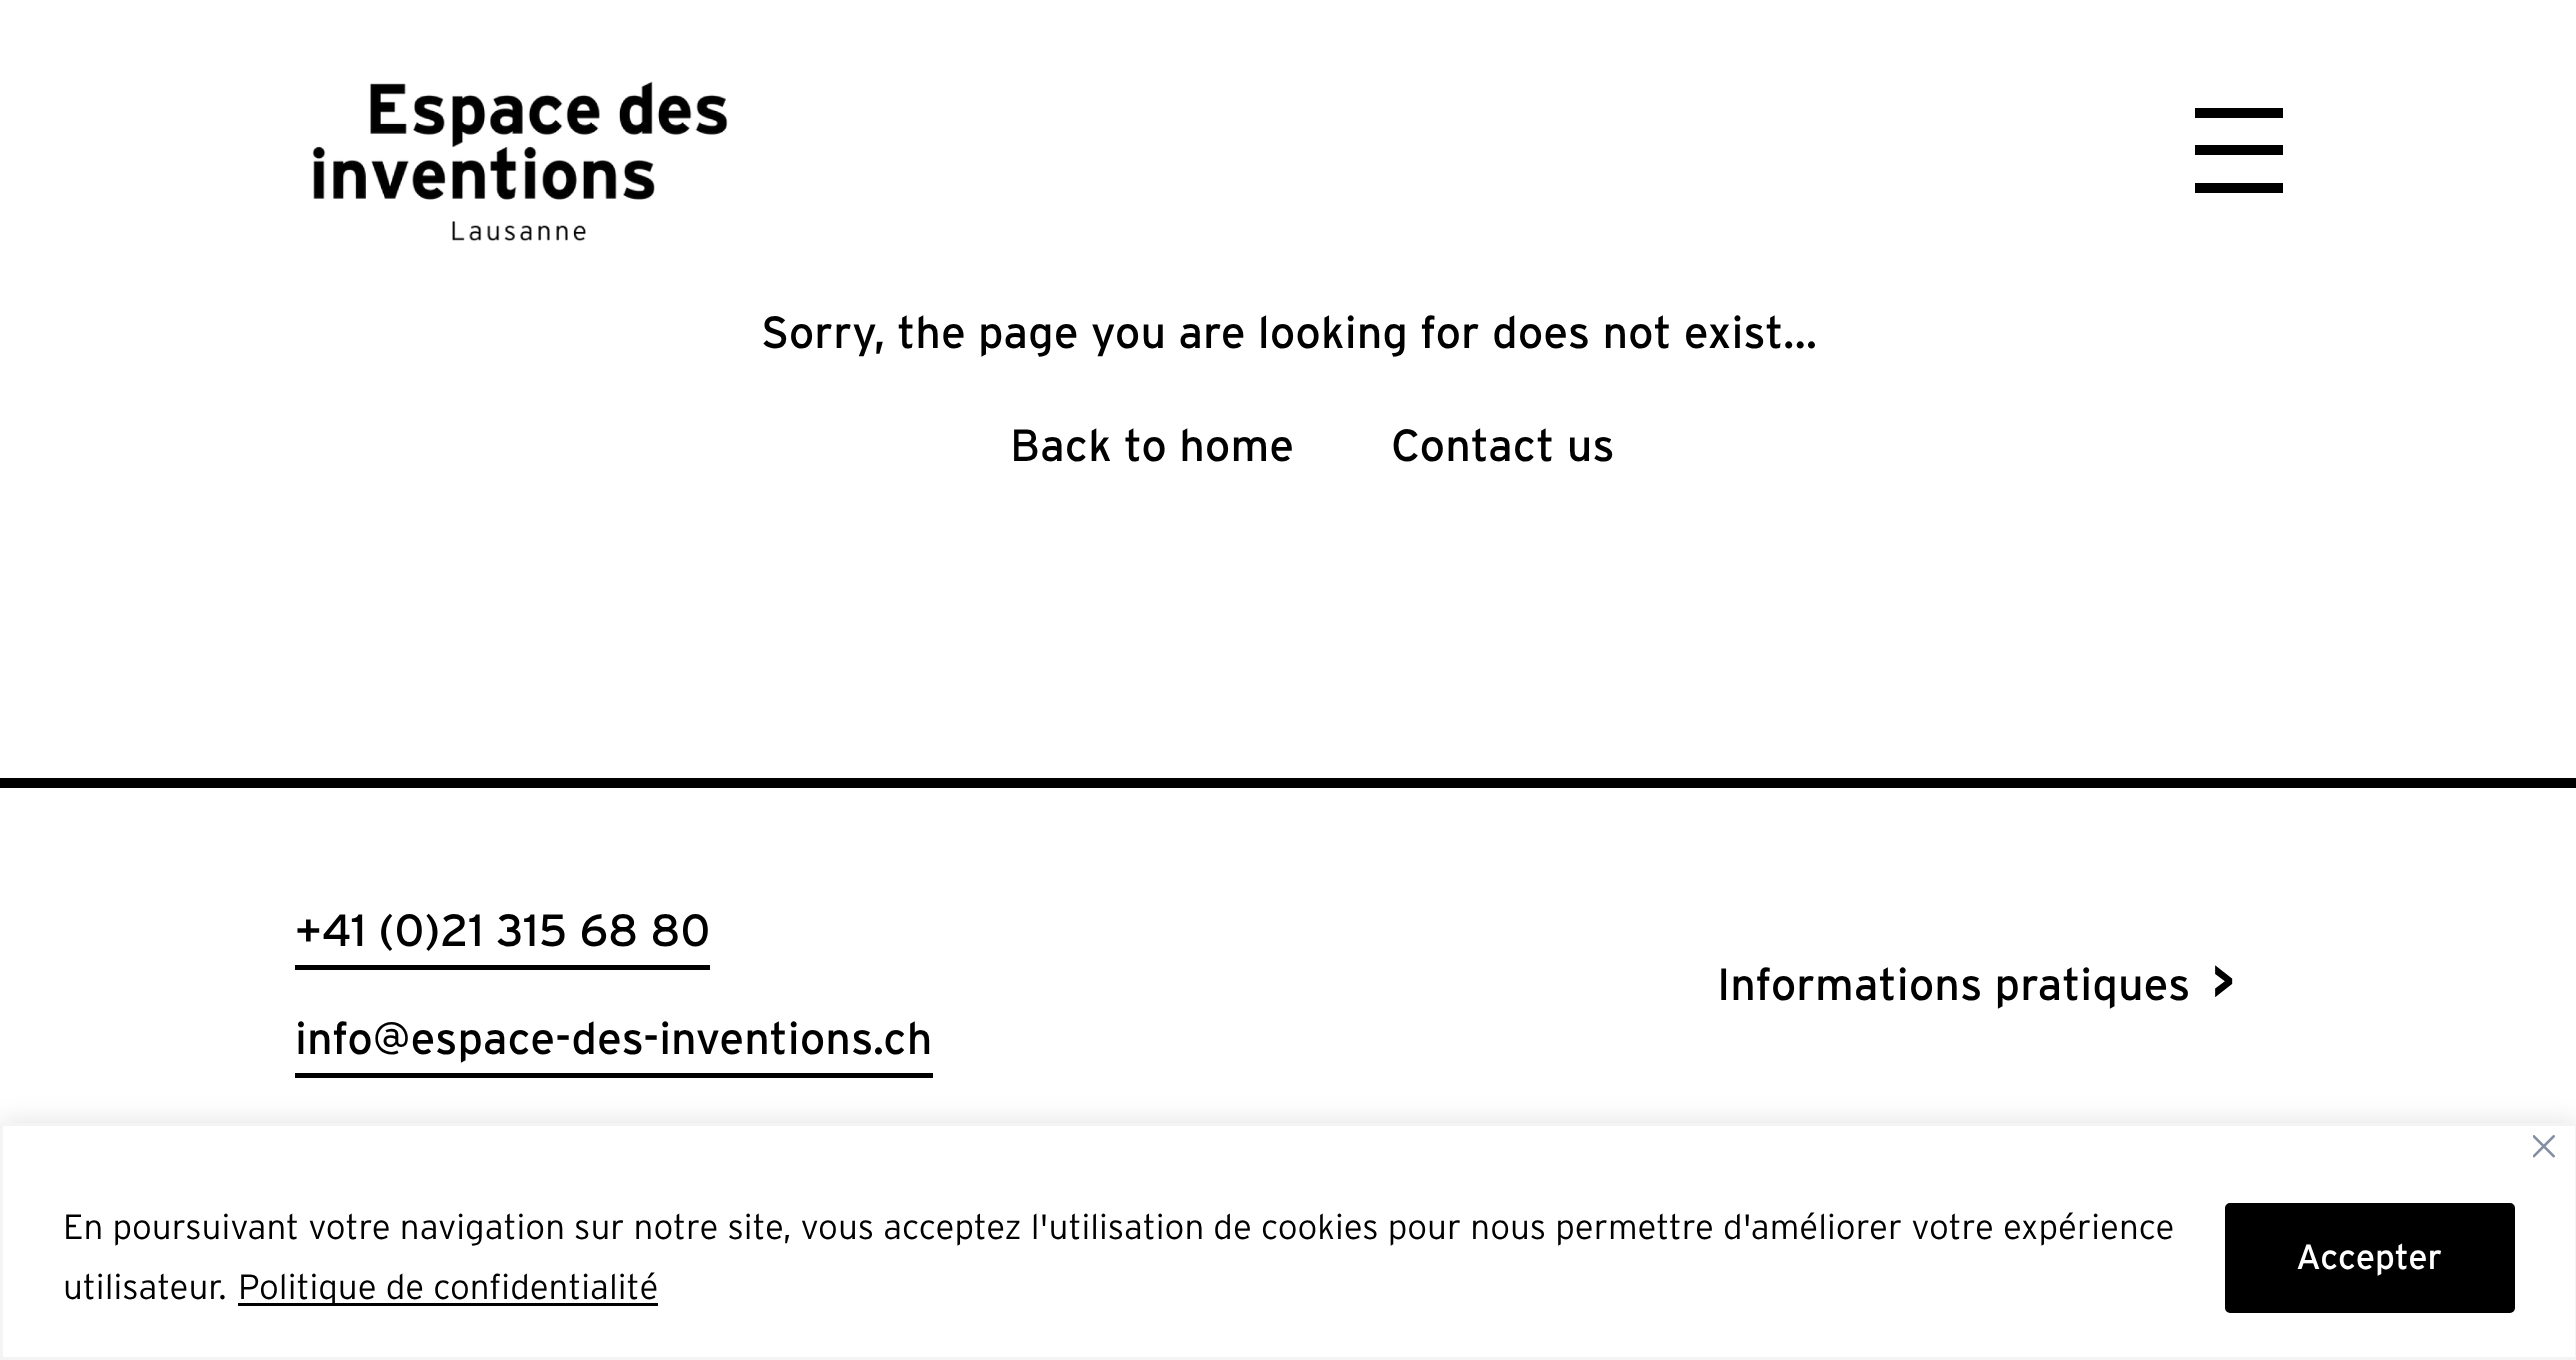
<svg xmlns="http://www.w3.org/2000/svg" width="2576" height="1360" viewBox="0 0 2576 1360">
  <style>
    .t1 { font: 45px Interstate; fill: #000; }
    .t2 { font: 300 35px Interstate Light; fill: #000; }
    .t3 { font: 35px Interstate; fill: #fff; }
  </style>
  <rect width="100%" height="100%" fill="#fff"/>
  <image x="312" y="81" width="416" height="161" href="images/1.png"/>
  <rect x="2195" y="145" width="88" height="10" fill="#000"/>
  <rect x="2195" y="108" width="88" height="10" fill="#000"/>
  <rect x="2195" y="183" width="88" height="10" fill="#000"/>
  <text x="761" y="348" class="t1">Sorry, the page you are looking for does not exist...</text>
  <text x="1010" y="461" class="t1">Back to home</text>
  <text x="1391" y="461" class="t1">Contact us</text>
  <rect x="0" y="778" width="2576" height="10" fill="#000"/>
  <text x="295" y="946" class="t1">+41 (0)21 315 68 80</text>
  <rect x="295" y="965" width="415" height="5" fill="#000"/>
  <text x="295" y="1054" class="t1">info@espace-des-inventions.ch</text>
  <rect x="295" y="1073" width="638" height="5" fill="#000"/>
  <text x="1717" y="1000" class="t1">Informations pratiques</text>
  <image x="2215" y="965" width="18" height="32" href="images/2.png"/>
  <rect x="0" y="1120" width="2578" height="238" fill="#acabab4d" filter="blur(12.5px)"/>
  <rect x="1.5" y="1124.5" width="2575" height="234" fill="#fff" stroke="#f4f4f4" stroke-width="3"/>
  <image x="2533" y="1135" width="22" height="23" href="images/3.png"/>
  <text x="63" y="1239" class="t2">En poursuivant votre navigation sur notre site, vous acceptez l'utilisation de cookies pour nous permettre d'améliorer votre expérience</text>
  <text x="63" y="1299" class="t2">utilisateur.</text>
  <rect x="238" y="1303" width="420" height="3" fill="#000"/>
  <text x="238" y="1299" class="t2">Politique de confidentialité</text>
  <rect x="2227.5" y="1205.5" width="285" height="105" rx="2.5" fill="#000" stroke="#000" stroke-width="5"/>
  <text x="2296" y="1269" class="t3">Accepter</text>
</svg>
